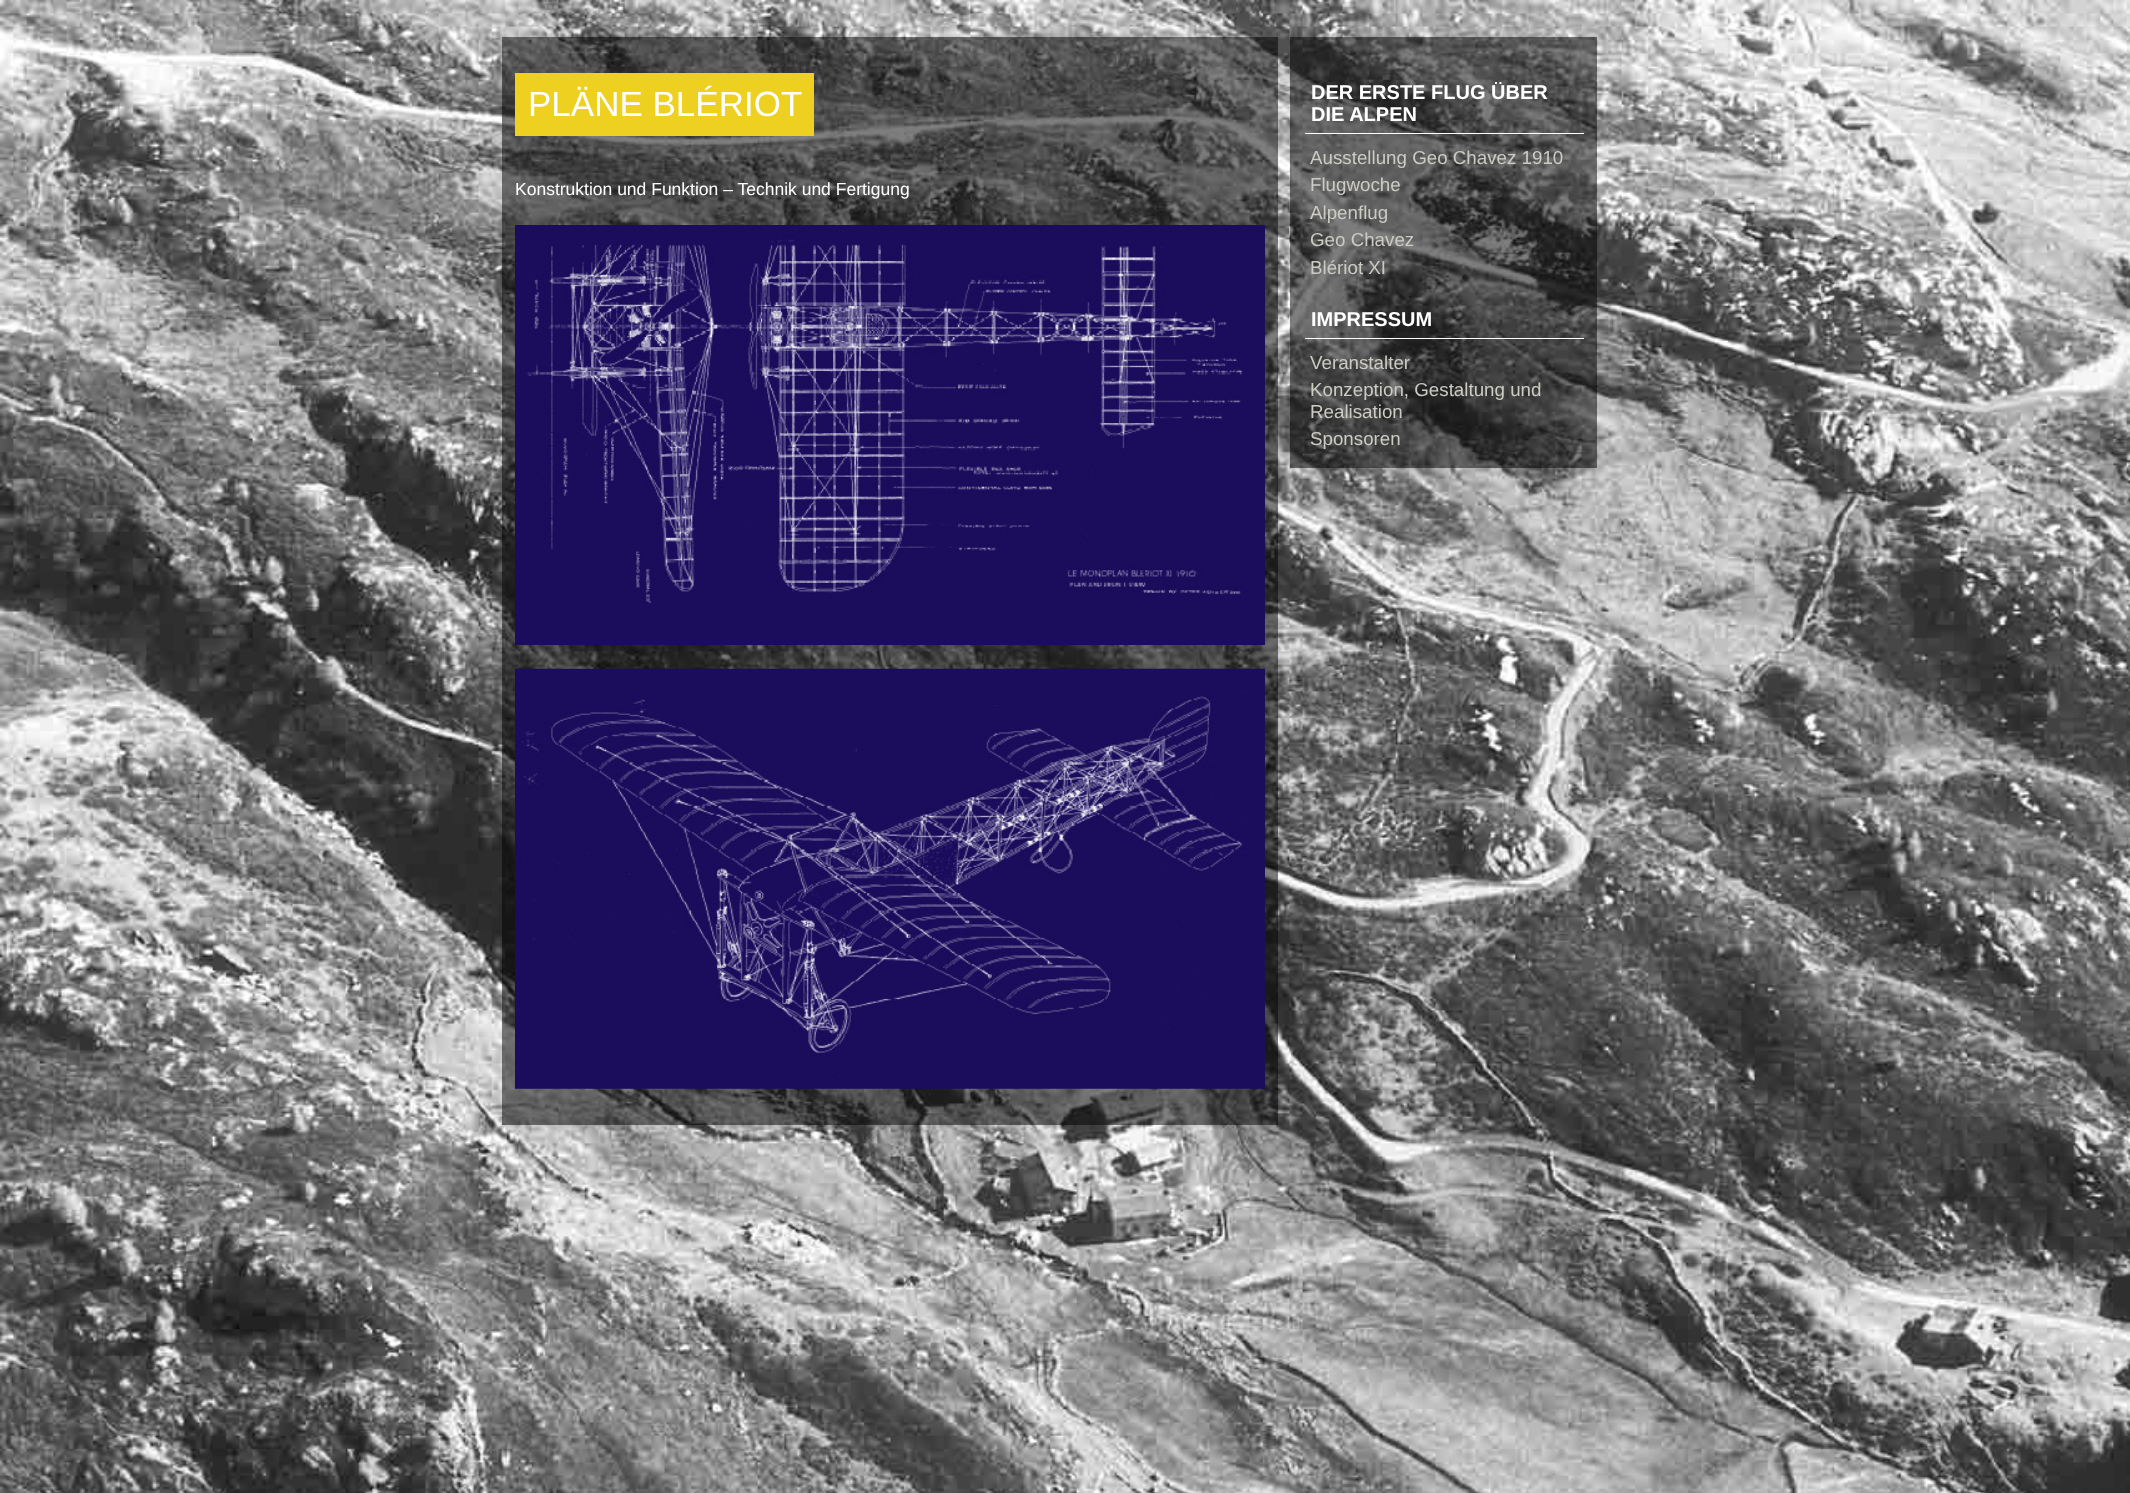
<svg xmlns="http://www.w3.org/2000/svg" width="2130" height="1493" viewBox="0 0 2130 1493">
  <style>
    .t1 { font: 35px Liberation Sans; fill: #fff; }
    .t2 { font: 17.5px Liberation Sans; fill: #fff; }
    .t3 { font: bold 20px Liberation Sans; fill: #fff; }
    .t4 { font: 18.75px Liberation Sans; fill: #cccbc4; }
  </style>
  <rect width="100%" height="100%" fill="#fff"/>
  <image x="0" y="0" width="2130" height="1493" href="images/1.png"/>
  <rect x="502" y="37" width="776" height="1088" fill="#00000080"/>
  <rect x="515" y="73" width="299" height="63" fill="#edd020"/>
  <text x="528" y="116" class="t1">PLÄNE BLÉRIOT</text>
  <text x="515" y="195" class="t2">Konstruktion und Funktion – Technik und Fertigung</text>
  <image x="515" y="225" width="750" height="420" href="images/2.png"/>
  <image x="515" y="668" width="750" height="421" href="images/3.png"/>
  <rect x="1290" y="37" width="307" height="431" fill="#00000080"/>
  <rect x="1305" y="133" width="279" height="1" fill="#fff"/>
  <text x="1311" y="99" class="t3">DER ERSTE FLUG ÜBER</text>
  <text x="1311" y="121" class="t3">DIE ALPEN</text>
  <text x="1310" y="164" class="t4">Ausstellung Geo Chavez 1910</text>
  <text x="1310" y="191" class="t4">Flugwoche</text>
  <text x="1310" y="219" class="t4">Alpenflug</text>
  <text x="1310" y="246" class="t4">Geo Chavez</text>
  <text x="1310" y="274" class="t4">Blériot XI</text>
  <rect x="1305" y="338" width="279" height="1" fill="#fff"/>
  <text x="1311" y="326" class="t3">IMPRESSUM</text>
  <text x="1310" y="369" class="t4">Veranstalter</text>
  <text x="1310" y="396" class="t4">Konzeption, Gestaltung und</text>
  <text x="1310" y="418" class="t4">Realisation</text>
  <text x="1310" y="445" class="t4">Sponsoren</text>
</svg>
